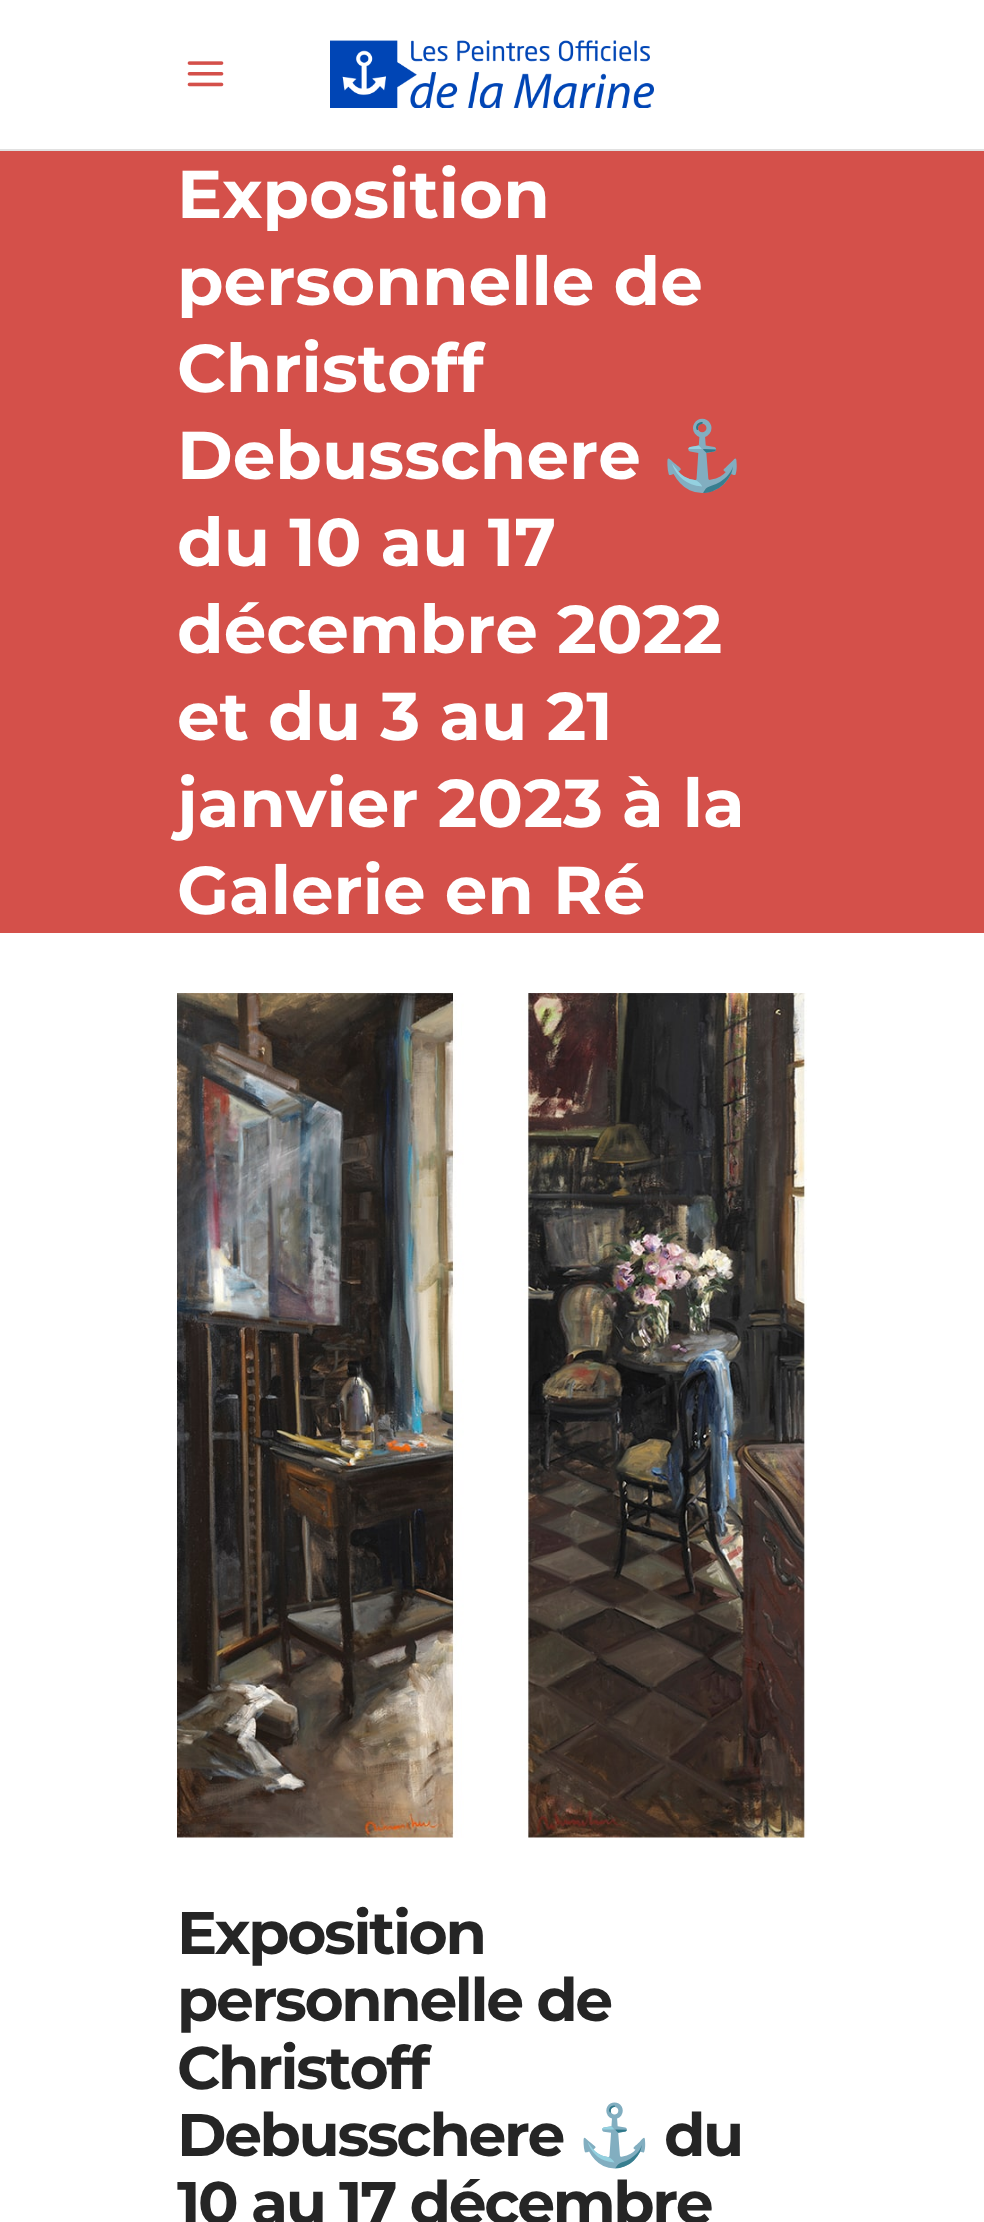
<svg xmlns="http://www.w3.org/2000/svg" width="984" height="2222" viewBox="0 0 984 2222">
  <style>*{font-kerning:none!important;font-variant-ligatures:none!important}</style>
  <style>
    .t1 { font: bold 67.5px Montserrat; fill: #fff; }
    .t2 { font: bold 67.5px Noto Color Emoji; fill: #fff; }
    .t3 { font: bold 60px Montserrat; letter-spacing: -2.4px; fill: #252525; }
    .t4 { font: bold 60px Noto Color Emoji; letter-spacing: -2.4px; fill: #252525; }
  </style>
  <rect width="100%" height="100%" fill="#fff"/>
  <rect x="0" y="149" width="984" height="2" fill="#e1e1e1"/>
  <image x="187" y="61" width="37" height="26" href="images/1.png"/>
  <image x="330" y="40" width="324" height="68" href="images/2.png"/>
  <rect x="0" y="151" width="984" height="782" fill="#d4504a"/>
  <text x="177" y="218" class="t1">Exposition</text>
  <text x="177" y="305" class="t1">personnelle de</text>
  <text x="177" y="392" class="t1">Christoff</text>
  <text x="177" y="479" class="t1">Debusschere</text>
  <text x="660" y="479" class="t2">⚓</text>
  <text x="177" y="566" class="t1">du 10 au 17</text>
  <text x="177" y="653" class="t1">décembre 2022</text>
  <text x="177" y="740" class="t1">et du 3 au 21</text>
  <text x="177" y="827" class="t1">janvier 2023 à la</text>
  <text x="177" y="914" class="t1">Galerie en Ré</text>
  <image x="177" y="993" width="630" height="845" href="images/3.png"/>
  <text x="177" y="1954" class="t3">Exposition</text>
  <text x="177" y="2021" class="t3">personnelle de</text>
  <text x="177" y="2089" class="t3">Christoff</text>
  <text x="177" y="2156" class="t3">Debusschere</text>
  <text x="577" y="2156" class="t4">⚓</text>
  <text x="664" y="2156" class="t3">du</text>
  <text x="177" y="2224" class="t3">10 au 17 décembre</text>
</svg>
